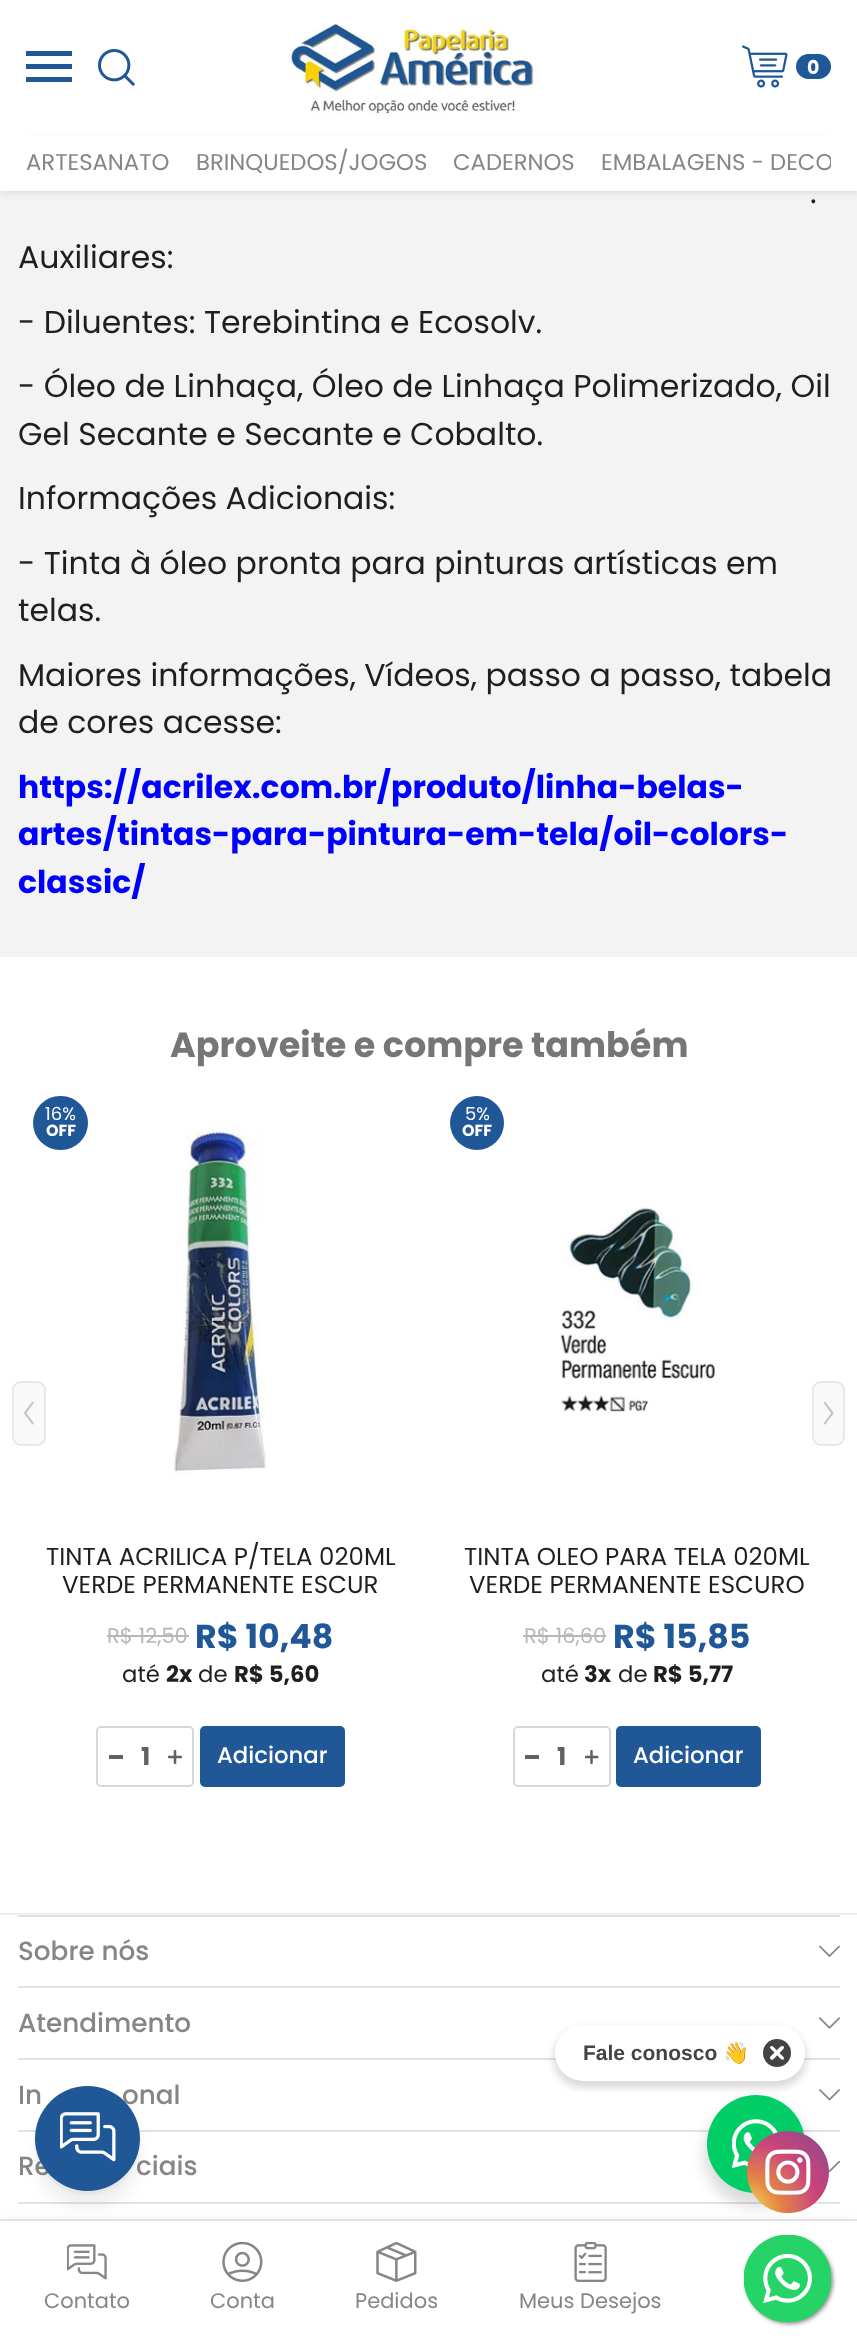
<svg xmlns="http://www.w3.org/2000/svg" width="857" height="2348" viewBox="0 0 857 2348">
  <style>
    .t1 { font: bold 19px Poppins; fill: #fff; }
    .t2 { font: 22.75px Poppins; fill: #868686; }
    .t3 { font: 31.5px Poppins; fill: #201f1f; }
    .t4 { font: bold 31.5px Poppins; fill: #00f; }
    .t5 { font: bold 35px Poppins; fill: #767676; }
    .t6 { font: 18px Poppins; fill: #fff; }
    .t7 { font: bold 16px Poppins; fill: #fff; }
    .t8 { font: 24.5px Poppins; fill: #201f1f; }
    .t9 { font: 21px Poppins; fill: #b7b7b7; }
    .t10 { font: bold 33.25px Poppins; fill: #205797; }
    .t11 { font: 22.75px Poppins; fill: #201f1f; }
    .t12 { font: bold 22.75px Poppins; fill: #201f1f; }
    .t13 { font: bold 24.5px Poppins; fill: #616161; }
    .t14 { font: 500 22.75px Poppins; fill: #fff; }
    .t15 { font: 500 26.25px Poppins; fill: #868686; }
    .t16 { font: bold 21px Liberation Sans; fill: #444; }
    .t17 { font: bold 21px Noto Color Emoji; fill: #444; }
    .t18 { font: 21px Poppins; fill: #868686; }
  </style>
  <defs>
    <clipPath id="clip1"><rect x="26" y="135" width="805" height="40"/></clipPath>
  </defs>
  <rect width="100%" height="100%" fill="#fff"/>
  <rect x="0" y="191" width="857" height="766" fill="#f3f3f3"/>
  <rect x="0" y="2" width="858" height="191" fill="#52525221" filter="blur(3.5px)"/>
  <rect x="0" y="0" width="857" height="189" fill="#fff"/>
  <rect x="0" y="189" width="857" height="2" fill="#fcfcfc"/>
  <rect x="26" y="77" width="46" height="5" fill="#205797"/>
  <rect x="26" y="64" width="46" height="5" fill="#205797"/>
  <rect x="26" y="51" width="46" height="5" fill="#205797"/>
  <image x="98" y="49" width="37" height="37" href="images/1.png"/>
  <image x="287" y="22" width="247" height="93" href="images/2.png"/>
  <image x="742" y="45" width="46" height="43" href="images/3.png"/>
  <rect x="796" y="54" width="35" height="25" rx="12.5" fill="#205797"/>
  <text x="807" y="74" class="t1">0</text>
  <rect x="26" y="133" width="805" height="2" fill="#fcfcfc"/>
  <text x="26" y="170" class="t2">ARTESANATO</text>
  <text x="196" y="170" class="t2">BRINQUEDOS/JOGOS</text>
  <text x="453" y="170" class="t2">CADERNOS</text>
  <g clip-path="url(#clip1)">
    <text x="601" y="170" class="t2">EMBALAGENS - DECO</text>
  </g>
  <text x="810" y="203" class="t3">.</text>
  <text x="18" y="268" class="t3">Auxiliares:</text>
  <text x="18" y="333" class="t3">- Diluentes: Terebintina e Ecosolv.</text>
  <text x="18" y="397" class="t3">- Óleo de Linhaça, Óleo de Linhaça Polimerizado, Oil</text>
  <text x="18" y="445" class="t3">Gel Secante e Secante e Cobalto.</text>
  <text x="18" y="509" class="t3">Informações Adicionais:</text>
  <text x="18" y="574" class="t3">- Tinta à óleo pronta para pinturas artísticas em</text>
  <text x="18" y="621" class="t3">telas.</text>
  <text x="18" y="686" class="t3">Maiores informações, Vídeos, passo a passo, tabela</text>
  <text x="18" y="733" class="t3">de cores acesse:</text>
  <text x="18" y="798" class="t4">https://acrilex.com.br/produto/linha-belas-</text>
  <text x="18" y="845" class="t4">artes/tintas-para-pintura-em-tela/oil-colors-</text>
  <text x="18" y="893" class="t4">classic/</text>
  <text x="170" y="1057" class="t5">Aproveite e compre também</text>
  <rect x="13" y="1382" width="32" height="63" rx="8" fill="#f9f9f9" stroke="#e8e8e8" stroke-width="2"/>
  <image x="24" y="1402" width="10" height="23" href="images/4.png"/>
  <rect x="33" y="1096" width="55" height="54" rx="27" fill="#205797"/>
  <text x="45" y="1120" class="t6">16%</text>
  <text x="46" y="1136" class="t7">OFF</text>
  <image x="174" y="1128" width="93" height="346" href="images/5.png"/>
  <text x="46" y="1565" class="t8">TINTA ACRILICA P/TELA 020ML</text>
  <text x="62" y="1593" class="t8">VERDE PERMANENTE ESCUR</text>
  <text x="107" y="1643" class="t9">R$ 12,50</text>
  <rect x="107" y="1635" width="82" height="2" fill="#b7b7b7"/>
  <text x="195" y="1648" class="t10">R$ 10,48</text>
  <text x="122" y="1682" class="t11">até</text>
  <text x="166" y="1682" class="t12">2x</text>
  <text x="198" y="1682" class="t11">de</text>
  <text x="234" y="1682" class="t12">R$ 5,60</text>
  <rect x="97" y="1727" width="96" height="59" rx="4" fill="none" stroke="#d8d8d8" stroke-width="2"/>
  <rect x="109" y="1755" width="14" height="4" fill="#616161"/>
  <text x="141" y="1765" class="t13">1</text>
  <image x="168" y="1750" width="14" height="14" href="images/6.png"/>
  <rect x="200" y="1726" width="145" height="61" rx="5" fill="#205797"/>
  <text x="217" y="1763" class="t14">Adicionar</text>
  <circle cx="477" cy="1123" r="27" fill="#205797"/>
  <text x="465" y="1120" class="t6">5%</text>
  <text x="462" y="1136" class="t7">OFF</text>
  <image x="560" y="1207" width="155" height="205" href="images/7.png"/>
  <text x="464" y="1565" class="t8">TINTA OLEO PARA TELA 020ML</text>
  <text x="469" y="1593" class="t8">VERDE PERMANENTE ESCURO</text>
  <text x="524" y="1643" class="t9">R$ 16,60</text>
  <rect x="523" y="1635" width="83" height="2" fill="#b7b7b7"/>
  <text x="613" y="1648" class="t10">R$ 15,85</text>
  <text x="541" y="1682" class="t11">até</text>
  <text x="584" y="1682" class="t12">3x</text>
  <text x="618" y="1682" class="t11">de</text>
  <text x="653" y="1682" class="t12">R$ 5,77</text>
  <rect x="514" y="1727" width="96" height="59" rx="4" fill="none" stroke="#d8d8d8" stroke-width="2"/>
  <rect x="525" y="1755" width="14" height="4" fill="#616161"/>
  <text x="557" y="1765" class="t13">1</text>
  <image x="585" y="1750" width="14" height="14" href="images/8.png"/>
  <rect x="616" y="1726" width="145" height="61" rx="5" fill="#205797"/>
  <text x="633" y="1763" class="t14">Adicionar</text>
  <rect x="813" y="1382" width="31" height="63" rx="8" fill="#f9f9f9" stroke="#e8e8e8" stroke-width="2"/>
  <image x="823" y="1402" width="11" height="23" href="images/9.png"/>
  <rect x="0" y="1913" width="857" height="2" fill="#efefef"/>
  <rect x="18" y="1915" width="822" height="2" fill="#e2e2e2"/>
  <text x="18" y="1960" class="t15">Sobre nós</text>
  <image x="819" y="1945" width="21" height="12" href="images/10.png"/>
  <rect x="18" y="1986" width="822" height="2" fill="#e2e2e2"/>
  <text x="18" y="2032" class="t15">Atendimento</text>
  <image x="819" y="2017" width="21" height="12" href="images/11.png"/>
  <rect x="18" y="2058" width="822" height="2" fill="#e2e2e2"/>
  <text x="18" y="2104" class="t15">In</text>
  <text x="122" y="2104" class="t15">onal</text>
  <image x="819" y="2089" width="21" height="12" href="images/12.png"/>
  <rect x="18" y="2130" width="822" height="2" fill="#e2e2e2"/>
  <text x="18" y="2175" class="t15">Re</text>
  <text x="136" y="2175" class="t15">ciais</text>
  <image x="828" y="2160" width="12" height="13" href="images/13.png"/>
  <rect x="18" y="2202" width="822" height="2" fill="#e2e2e2"/>
  <rect x="553" y="2028" width="254" height="60" rx="30" fill="#00000024" filter="blur(3.5px)"/>
  <rect x="555" y="2025" width="250" height="56" rx="28" fill="#fff"/>
  <text x="583" y="2060" class="t16">Fale conosco</text>
  <text x="723" y="2060" class="t17">👋</text>
  <circle cx="777" cy="2053" r="14" fill="#444"/>
  <path d="M770.5 2056.5L779 2048C780 2047.5 781 2045.5 782.5 2046C787 2046.5 780.5 2052 780 2052.5L773 2059.5C771 2060.5 769 2058 770.5 2056.5Z" fill="#fff"/>
  <path d="M773 2046.5L781.5 2055C782.5 2056 784 2057 784 2058.5C783 2062.5 778 2056 777.5 2055.5L770.5 2048.5C769 2047 771.5 2045 773 2046.5Z" fill="#fff"/>
  <rect x="35" y="2104" width="105" height="105" rx="52.5" fill="#6767671a" filter="blur(7px)"/>
  <rect x="0" y="2219" width="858" height="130" fill="#52525214" filter="blur(3.5px)"/>
  <rect x="0" y="2221" width="857" height="127" fill="#fff"/>
  <rect x="0" y="2219" width="857" height="2" fill="#e2e2e2"/>
  <rect x="704" y="2102" width="105" height="105" rx="52.5" fill="#00000024" filter="blur(7px)"/>
  <circle cx="756" cy="2144" r="49" fill="#00cd66"/>
  <image x="732" y="2119" width="46" height="49" href="images/14.png"/>
  <rect x="35" y="2090" width="105" height="105" rx="52.5" fill="#0000000a" filter="blur(1px)"/>
  <circle cx="87.5" cy="2138.5" r="52.5" fill="#205797"/>
  <image x="60" y="2112" width="56" height="50" href="images/15.png"/>
  <image x="746" y="2131" width="83" height="83" href="images/16.png"/>
  <image x="67" y="2244" width="40" height="36" href="images/17.png"/>
  <text x="44" y="2308" class="t18">Contato</text>
  <image x="222" y="2242" width="41" height="40" href="images/18.png"/>
  <text x="210" y="2308" class="t18">Conta</text>
  <image x="376" y="2242" width="41" height="40" href="images/19.png"/>
  <text x="355" y="2308" class="t18">Pedidos</text>
  <image x="574" y="2242" width="33" height="40" href="images/20.png"/>
  <text x="519" y="2308" class="t18">Meus Desejos</text>
  <rect x="746" y="2237" width="87" height="87" rx="43.5" fill="#888" filter="blur(2px)"/>
  <image x="744" y="2235" width="87" height="87" href="images/21.png"/>
</svg>
